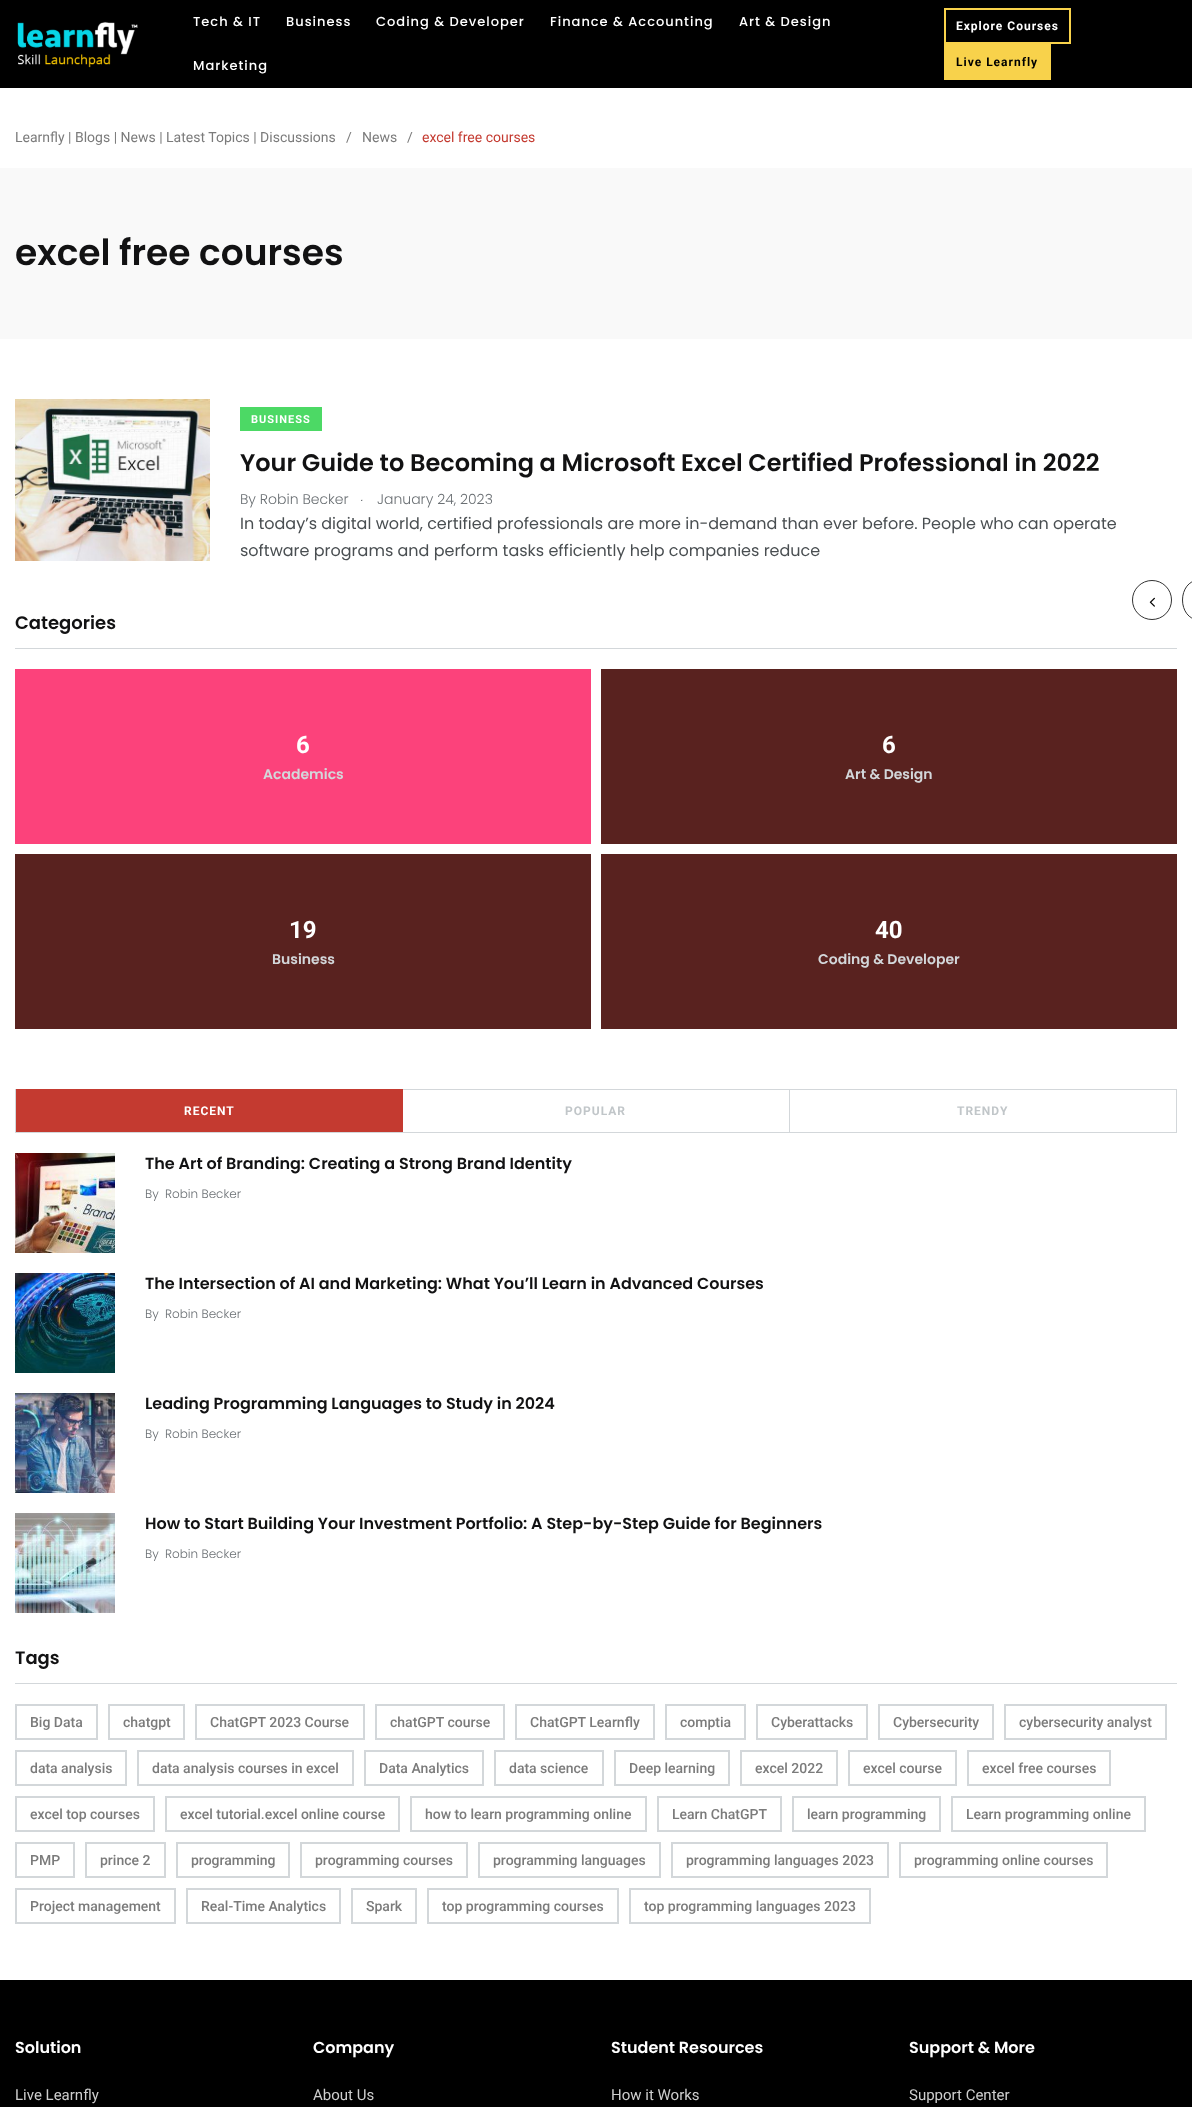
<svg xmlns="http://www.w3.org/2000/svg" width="1192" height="2107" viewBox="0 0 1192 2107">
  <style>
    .t1 { font: 500 13px Poppins; letter-spacing: 1px; fill: #fff; }
    .t2 { font: bold 12px Roboto; letter-spacing: 1px; fill: #fff; }
    .t3 { font: bold 12px Roboto; letter-spacing: 1px; fill: #000; }
    .t4 { font: 14px Roboto; fill: #7b7b7b; }
    .t5 { font: 14px Roboto; fill: #c43a30; }
    .t6 { font: 600 36px Poppins; fill: #121213; }
    .t7 { font: bold 11px Roboto; letter-spacing: 1px; fill: #fff; }
    .t8 { font: 600 24px Poppins; fill: #121213; }
    .t9 { font: 300 14px Poppins; fill: #6b7074; }
    .t10 { font: italic 300 14px Poppins; fill: #6b7074; }
    .t11 { font: 16px Poppins; fill: #494e51; }
    .t12 { font: 600 18px Poppins; fill: #121213; }
    .t13 { font: bold 24px Roboto; fill: #fff; }
    .t14 { font: 600 14px Poppins; fill: #d3d7da; }
    .t15 { font: bold 12px Roboto; letter-spacing: 1px; fill: #c1c6c9; }
    .t16 { font: 600 16px Poppins; fill: #121213; }
    .t17 { font: 300 12px Poppins; fill: #6b7074; }
    .t18 { font: 500 14px Roboto; fill: #7b7b7b; }
    .t19 { font: 600 16px Poppins; fill: #fff; }
    .t20 { font: 15px Roboto; fill: #cecece; }
  </style>
  <rect width="100%" height="100%" fill="#fff"/>
  <rect x="0" y="0" width="1192" height="88" fill="#000"/>
  <image x="17" y="21" width="121" height="47" href="images/1.png"/>
  <text x="193" y="26" class="t1">Tech &amp; IT</text>
  <text x="286" y="26" class="t1">Business</text>
  <text x="376" y="26" class="t1">Coding &amp; Developer</text>
  <text x="550" y="26" class="t1">Finance &amp; Accounting</text>
  <text x="739" y="26" class="t1">Art &amp; Design</text>
  <text x="193" y="70" class="t1">Marketing</text>
  <rect x="945" y="9" width="125" height="34" fill="none" stroke="#f8d24b" stroke-width="2"/>
  <text x="956" y="30" class="t2">Explore Courses</text>
  <rect x="944" y="44" width="107" height="36" fill="#f8d24b"/>
  <text x="956" y="66" class="t3">Live Learnfly</text>
  <text x="15" y="142" class="t4">Learnfly | Blogs | News | Latest Topics | Discussions</text>
  <text x="346" y="142" class="t4">/</text>
  <text x="362" y="142" class="t4">News</text>
  <text x="407" y="142" class="t4">/</text>
  <text x="422" y="142" class="t5">excel free courses</text>
  <rect x="0" y="168" width="1192" height="171" fill="#f9f9f9"/>
  <text x="15" y="265" class="t6">excel free courses</text>
  <image x="15" y="399" width="195" height="162" href="images/2.png"/>
  <rect x="240" y="407" width="82" height="24" fill="#4cd965"/>
  <text x="251" y="423" class="t7">BUSINESS</text>
  <text x="240" y="471" class="t8">Your Guide to Becoming a Microsoft Excel Certified Professional in 2022</text>
  <text x="240" y="504" class="t9">By Robin Becker</text>
  <text x="361" y="501" class="t10">.</text>
  <text x="377" y="504" class="t9">January 24, 2023</text>
  <text x="240" y="529" class="t11">In today’s digital world, certified professionals are more in-demand than ever before. People who can operate</text>
  <text x="240" y="556" class="t11">software programs and perform tasks efficiently help companies reduce</text>
  <rect x="15" y="648" width="1162" height="1" fill="#d3d7da"/>
  <text x="15" y="629" class="t12">Categories</text>
  <circle cx="1152" cy="600" r="19.5" fill="none" stroke="#333"/>
  <image x="1149" y="597" width="6" height="10" href="images/3.png"/>
  <rect x="1182.5" y="580.5" width="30" height="39" rx="19.5" fill="none" stroke="#333"/>
  <rect x="15" y="669" width="576" height="175" fill="#fc427b"/>
  <text x="296" y="753" class="t13">6</text>
  <text x="263" y="779" class="t14">Academics</text>
  <rect x="601" y="669" width="576" height="175" fill="#59221f"/>
  <text x="882" y="753" class="t13">6</text>
  <text x="845" y="779" class="t14">Art &amp; Design</text>
  <rect x="15" y="854" width="576" height="175" fill="#59221f"/>
  <text x="289" y="938" class="t13">19</text>
  <text x="272" y="964" class="t14">Business</text>
  <rect x="601" y="854" width="576" height="175" fill="#59221f"/>
  <text x="875" y="938" class="t13">40</text>
  <text x="818" y="964" class="t14">Coding &amp; Developer</text>
  <rect x="15" y="1132" width="1162" height="1" fill="#d3d7da"/>
  <rect x="15" y="1089" width="1" height="44" fill="#d3d7da"/>
  <rect x="16" y="1090" width="386" height="42" fill="#c43a30"/>
  <rect x="16" y="1089" width="387" height="1" fill="#c43a30"/>
  <rect x="402" y="1089" width="1" height="43" fill="#c43a30"/>
  <text x="184" y="1115" class="t2">RECENT</text>
  <rect x="403" y="1089" width="774" height="1" fill="#d3d7da"/>
  <rect x="789" y="1089" width="1" height="43" fill="#d3d7da"/>
  <text x="565" y="1115" class="t15">POPULAR</text>
  <rect x="1176" y="1089" width="1" height="43" fill="#d3d7da"/>
  <text x="957" y="1115" class="t15">TRENDY</text>
  <image x="15" y="1153" width="100" height="100" href="images/4.png"/>
  <text x="145" y="1169" class="t16">The Art of Branding: Creating a Strong Brand Identity</text>
  <text x="145" y="1198" class="t17">By</text>
  <text x="165" y="1198" class="t17">Robin Becker</text>
  <image x="15" y="1273" width="100" height="100" href="images/5.png"/>
  <text x="145" y="1289" class="t16">The Intersection of AI and Marketing: What You’ll Learn in Advanced Courses</text>
  <text x="145" y="1318" class="t17">By</text>
  <text x="165" y="1318" class="t17">Robin Becker</text>
  <image x="15" y="1393" width="100" height="100" href="images/6.png"/>
  <text x="145" y="1409" class="t16">Leading Programming Languages to Study in 2024</text>
  <text x="145" y="1438" class="t17">By</text>
  <text x="165" y="1438" class="t17">Robin Becker</text>
  <image x="15" y="1513" width="100" height="100" href="images/7.png"/>
  <text x="145" y="1529" class="t16">How to Start Building Your Investment Portfolio: A Step-by-Step Guide for Beginners</text>
  <text x="145" y="1558" class="t17">By</text>
  <text x="165" y="1558" class="t17">Robin Becker</text>
  <rect x="15" y="1683" width="1162" height="1" fill="#d3d7da"/>
  <text x="15" y="1664" class="t12">Tags</text>
  <rect x="16" y="1705" width="81" height="34" fill="none" stroke="#d3d7da" stroke-width="2"/>
  <text x="30" y="1727" class="t18">Big Data</text>
  <rect x="109" y="1705" width="75" height="34" fill="none" stroke="#d3d7da" stroke-width="2"/>
  <text x="123" y="1727" class="t18">chatgpt</text>
  <rect x="196" y="1705" width="168" height="34" fill="none" stroke="#d3d7da" stroke-width="2"/>
  <text x="210" y="1727" class="t18">ChatGPT 2023 Course</text>
  <rect x="376" y="1705" width="128" height="34" fill="none" stroke="#d3d7da" stroke-width="2"/>
  <text x="390" y="1727" class="t18">chatGPT course</text>
  <rect x="516" y="1705" width="138" height="34" fill="none" stroke="#d3d7da" stroke-width="2"/>
  <text x="530" y="1727" class="t18">ChatGPT Learnfly</text>
  <rect x="666" y="1705" width="79" height="34" fill="none" stroke="#d3d7da" stroke-width="2"/>
  <text x="680" y="1727" class="t18">comptia</text>
  <rect x="757" y="1705" width="110" height="34" fill="none" stroke="#d3d7da" stroke-width="2"/>
  <text x="771" y="1727" class="t18">Cyberattacks</text>
  <rect x="879" y="1705" width="114" height="34" fill="none" stroke="#d3d7da" stroke-width="2"/>
  <text x="893" y="1727" class="t18">Cybersecurity</text>
  <rect x="1005" y="1705" width="161" height="34" fill="none" stroke="#d3d7da" stroke-width="2"/>
  <text x="1019" y="1727" class="t18">cybersecurity analyst</text>
  <rect x="16" y="1751" width="110" height="34" fill="none" stroke="#d3d7da" stroke-width="2"/>
  <text x="30" y="1773" class="t18">data analysis</text>
  <rect x="138" y="1751" width="215" height="34" fill="none" stroke="#d3d7da" stroke-width="2"/>
  <text x="152" y="1773" class="t18">data analysis courses in excel</text>
  <rect x="365" y="1751" width="118" height="34" fill="none" stroke="#d3d7da" stroke-width="2"/>
  <text x="379" y="1773" class="t18">Data Analytics</text>
  <rect x="495" y="1751" width="108" height="34" fill="none" stroke="#d3d7da" stroke-width="2"/>
  <text x="509" y="1773" class="t18">data science</text>
  <rect x="615" y="1751" width="114" height="34" fill="none" stroke="#d3d7da" stroke-width="2"/>
  <text x="629" y="1773" class="t18">Deep learning</text>
  <rect x="741" y="1751" width="96" height="34" fill="none" stroke="#d3d7da" stroke-width="2"/>
  <text x="755" y="1773" class="t18">excel 2022</text>
  <rect x="849" y="1751" width="107" height="34" fill="none" stroke="#d3d7da" stroke-width="2"/>
  <text x="863" y="1773" class="t18">excel course</text>
  <rect x="968" y="1751" width="142" height="34" fill="none" stroke="#d3d7da" stroke-width="2"/>
  <text x="982" y="1773" class="t18">excel free courses</text>
  <rect x="16" y="1797" width="138" height="34" fill="none" stroke="#d3d7da" stroke-width="2"/>
  <text x="30" y="1819" class="t18">excel top courses</text>
  <rect x="166" y="1797" width="233" height="34" fill="none" stroke="#d3d7da" stroke-width="2"/>
  <text x="180" y="1819" class="t18">excel tutorial.excel online course</text>
  <rect x="411" y="1797" width="235" height="34" fill="none" stroke="#d3d7da" stroke-width="2"/>
  <text x="425" y="1819" class="t18">how to learn programming online</text>
  <rect x="658" y="1797" width="123" height="34" fill="none" stroke="#d3d7da" stroke-width="2"/>
  <text x="672" y="1819" class="t18">Learn ChatGPT</text>
  <rect x="793" y="1797" width="147" height="34" fill="none" stroke="#d3d7da" stroke-width="2"/>
  <text x="807" y="1819" class="t18">learn programming</text>
  <rect x="952" y="1797" width="193" height="34" fill="none" stroke="#d3d7da" stroke-width="2"/>
  <text x="966" y="1819" class="t18">Learn programming online</text>
  <rect x="16" y="1843" width="58" height="34" fill="none" stroke="#d3d7da" stroke-width="2"/>
  <text x="30" y="1865" class="t18">PMP</text>
  <rect x="86" y="1843" width="79" height="34" fill="none" stroke="#d3d7da" stroke-width="2"/>
  <text x="100" y="1865" class="t18">prince 2</text>
  <rect x="177" y="1843" width="112" height="34" fill="none" stroke="#d3d7da" stroke-width="2"/>
  <text x="191" y="1865" class="t18">programming</text>
  <rect x="301" y="1843" width="166" height="34" fill="none" stroke="#d3d7da" stroke-width="2"/>
  <text x="315" y="1865" class="t18">programming courses</text>
  <rect x="479" y="1843" width="181" height="34" fill="none" stroke="#d3d7da" stroke-width="2"/>
  <text x="493" y="1865" class="t18">programming languages</text>
  <rect x="672" y="1843" width="216" height="34" fill="none" stroke="#d3d7da" stroke-width="2"/>
  <text x="686" y="1865" class="t18">programming languages 2023</text>
  <rect x="900" y="1843" width="207" height="34" fill="none" stroke="#d3d7da" stroke-width="2"/>
  <text x="914" y="1865" class="t18">programming online courses</text>
  <rect x="16" y="1889" width="159" height="34" fill="none" stroke="#d3d7da" stroke-width="2"/>
  <text x="30" y="1911" class="t18">Project management</text>
  <rect x="187" y="1889" width="153" height="34" fill="none" stroke="#d3d7da" stroke-width="2"/>
  <text x="201" y="1911" class="t18">Real-Time Analytics</text>
  <rect x="352" y="1889" width="64" height="34" fill="none" stroke="#d3d7da" stroke-width="2"/>
  <text x="366" y="1911" class="t18">Spark</text>
  <rect x="428" y="1889" width="190" height="34" fill="none" stroke="#d3d7da" stroke-width="2"/>
  <text x="442" y="1911" class="t18">top programming courses</text>
  <rect x="630" y="1889" width="240" height="34" fill="none" stroke="#d3d7da" stroke-width="2"/>
  <text x="644" y="1911" class="t18">top programming languages 2023</text>
  <rect x="0" y="1980" width="1192" height="127" fill="#000"/>
  <text x="15" y="2053" class="t19">Solution</text>
  <text x="15" y="2100" class="t20">Live Learnfly</text>
  <text x="313" y="2053" class="t19">Company</text>
  <text x="313" y="2100" class="t20">About Us</text>
  <text x="611" y="2053" class="t19">Student Resources</text>
  <text x="611" y="2100" class="t20">How it Works</text>
  <text x="909" y="2053" class="t19">Support &amp; More</text>
  <text x="909" y="2100" class="t20">Support Center</text>
</svg>
